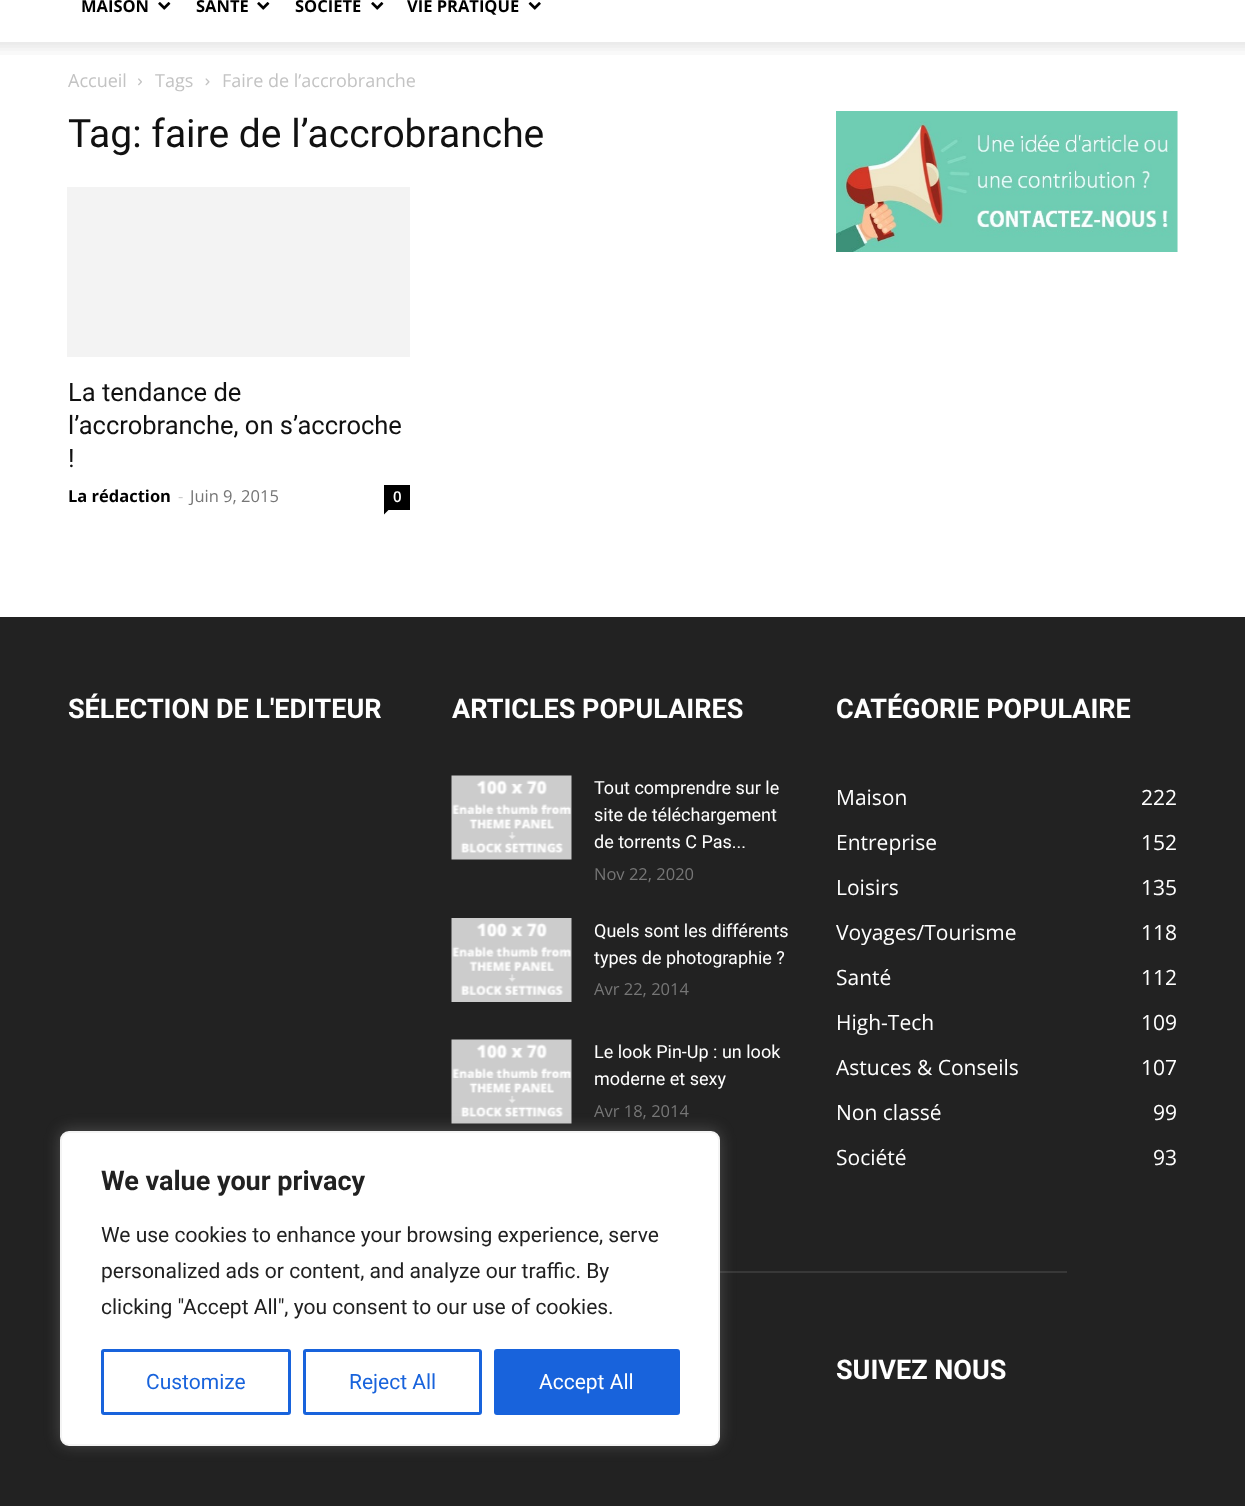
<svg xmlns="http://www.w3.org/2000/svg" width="1245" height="1506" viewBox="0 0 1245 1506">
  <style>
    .t1 { font: bold 16.5px Open Sans; fill: #000; }
    .t2 { font: 18px Open Sans; fill: #c3c3c3; }
    .t3 { font: 39px Roboto; fill: #111; }
    .t4 { font: 25.5px Roboto; fill: #111; }
    .t5 { font: 16.5px Open Sans; fill: #ccc; }
    .t6 { font: 16.5px Open Sans; fill: #767676; }
    .t7 { font: 600 15px Open Sans; fill: #fff; }
    .t8 { font: bold 27px Roboto; fill: #fff; }
    .t9 { font: 18px Roboto; fill: #fff; }
    .t10 { font: 21px Open Sans; fill: #fff; }
    .t11 { font: bold 27px Roboto; fill: #212121; }
    .t12 { font: 21px Roboto; fill: #212121; }
    .t13 { font: 21px Roboto; fill: #1863dc; }
    .t14 { font: 21px Roboto; fill: #fff; }
  </style>
  <rect width="100%" height="100%" fill="#fff"/>
  <text x="81" y="12" class="t1">MAISON</text>
  <image x="158" y="2" width="13" height="8" href="images/1.png"/>
  <text x="196" y="12" class="t1">SANTÉ</text>
  <image x="257" y="2" width="13" height="8" href="images/1.png"/>
  <text x="295" y="12" class="t1">SOCIÉTÉ</text>
  <image x="371" y="2" width="13" height="8" href="images/1.png"/>
  <text x="407" y="12" class="t1">VIE PRATIQUE</text>
  <image x="528" y="2" width="13" height="8" href="images/2.png"/>
  <image x="0" y="42" width="1245" height="13" href="images/3.png"/>
  <text x="68" y="87" class="t2">Accueil</text>
  <image x="138" y="78" width="4" height="8" href="images/4.png"/>
  <text x="155" y="87" class="t2">Tags</text>
  <image x="205" y="78" width="5" height="8" href="images/5.png"/>
  <text x="222" y="87" class="t2">Faire de l’accrobranche</text>
  <text x="68" y="147" class="t3">Tag: faire de l’accrobranche</text>
  <rect x="67" y="187" width="343" height="170" fill="#f3f3f3"/>
  <text x="68" y="401" class="t4">La tendance de</text>
  <text x="68" y="434" class="t4">l’accrobranche, on s’accroche</text>
  <text x="68" y="467" class="t4">!</text>
  <text x="68" y="502" class="t1">La rédaction</text>
  <text x="178" y="502" class="t5">-</text>
  <text x="190" y="502" class="t6">Juin 9, 2015</text>
  <rect x="384" y="485" width="26" height="25" fill="#000"/>
  <text x="393" y="502" class="t7">0</text>
  <path d="M384 510H388.5L384 514.5Z" fill="#000"/>
  <image x="836" y="111" width="342" height="141" href="images/6.png"/>
  <rect x="0" y="617" width="1245" height="889" fill="#222"/>
  <text x="68" y="718" class="t8">SÉLECTION DE L'EDITEUR</text>
  <text x="452" y="718" class="t8">ARTICLES POPULAIRES</text>
  <image x="451" y="775" width="121" height="85" href="images/7.png"/>
  <text x="594" y="794" class="t9">Tout comprendre sur le</text>
  <text x="594" y="821" class="t9">site de téléchargement</text>
  <text x="594" y="848" class="t9">de torrents C Pas...</text>
  <text x="594" y="880" class="t6">Nov 22, 2020</text>
  <image x="451" y="918" width="121" height="84" href="images/8.png"/>
  <text x="594" y="937" class="t9">Quels sont les différents</text>
  <text x="594" y="964" class="t9">types de photographie ?</text>
  <text x="594" y="995" class="t6">Avr 22, 2014</text>
  <image x="451" y="1039" width="121" height="85" href="images/7.png"/>
  <text x="594" y="1058" class="t9">Le look Pin-Up : un look</text>
  <text x="594" y="1085" class="t9">moderne et sexy</text>
  <text x="594" y="1117" class="t6">Avr 18, 2014</text>
  <text x="836" y="718" class="t8">CATÉGORIE POPULAIRE</text>
  <text x="836" y="805" class="t10">Maison</text>
  <text x="1141" y="805" class="t10">222</text>
  <text x="836" y="850" class="t10">Entreprise</text>
  <text x="1141" y="850" class="t10">152</text>
  <text x="836" y="895" class="t10">Loisirs</text>
  <text x="1141" y="895" class="t10">135</text>
  <text x="836" y="940" class="t10">Voyages/Tourisme</text>
  <text x="1141" y="940" class="t10">118</text>
  <text x="836" y="985" class="t10">Santé</text>
  <text x="1141" y="985" class="t10">112</text>
  <text x="836" y="1030" class="t10">High-Tech</text>
  <text x="1141" y="1030" class="t10">109</text>
  <text x="836" y="1075" class="t10">Astuces &amp; Conseils</text>
  <text x="1141" y="1075" class="t10">107</text>
  <text x="836" y="1120" class="t10">Non classé</text>
  <text x="1153" y="1120" class="t10">99</text>
  <text x="836" y="1165" class="t10">Société</text>
  <text x="1153" y="1165" class="t10">93</text>
  <rect x="720" y="1271" width="347" height="2" fill="#383838"/>
  <text x="836" y="1379" class="t8">SUIVEZ NOUS</text>
  <rect x="60" y="1130" width="660" height="315" rx="9" fill="#acabab4d" filter="blur(7.5px)"/>
  <rect x="61" y="1132" width="658" height="313" rx="8" fill="#fff" stroke="#f4f4f4" stroke-width="2"/>
  <text x="101" y="1190" class="t11">We value your privacy</text>
  <text x="101" y="1242" class="t12">We use cookies to enhance your browsing experience, serve</text>
  <text x="101" y="1278" class="t12">personalized ads or content, and analyze our traffic. By</text>
  <text x="101" y="1314" class="t12">clicking "Accept All", you consent to our use of cookies.</text>
  <rect x="102.5" y="1350.5" width="187" height="63" rx="1.5" fill="none" stroke="#1863dc" stroke-width="3"/>
  <text x="146" y="1389" class="t13">Customize</text>
  <rect x="304.5" y="1350.5" width="176" height="63" rx="1.5" fill="none" stroke="#1863dc" stroke-width="3"/>
  <text x="349" y="1389" class="t13">Reject All</text>
  <rect x="495.5" y="1350.5" width="183" height="63" rx="1.5" fill="#1863dc" stroke="#1863dc" stroke-width="3"/>
  <text x="539" y="1389" class="t14">Accept All</text>
</svg>
